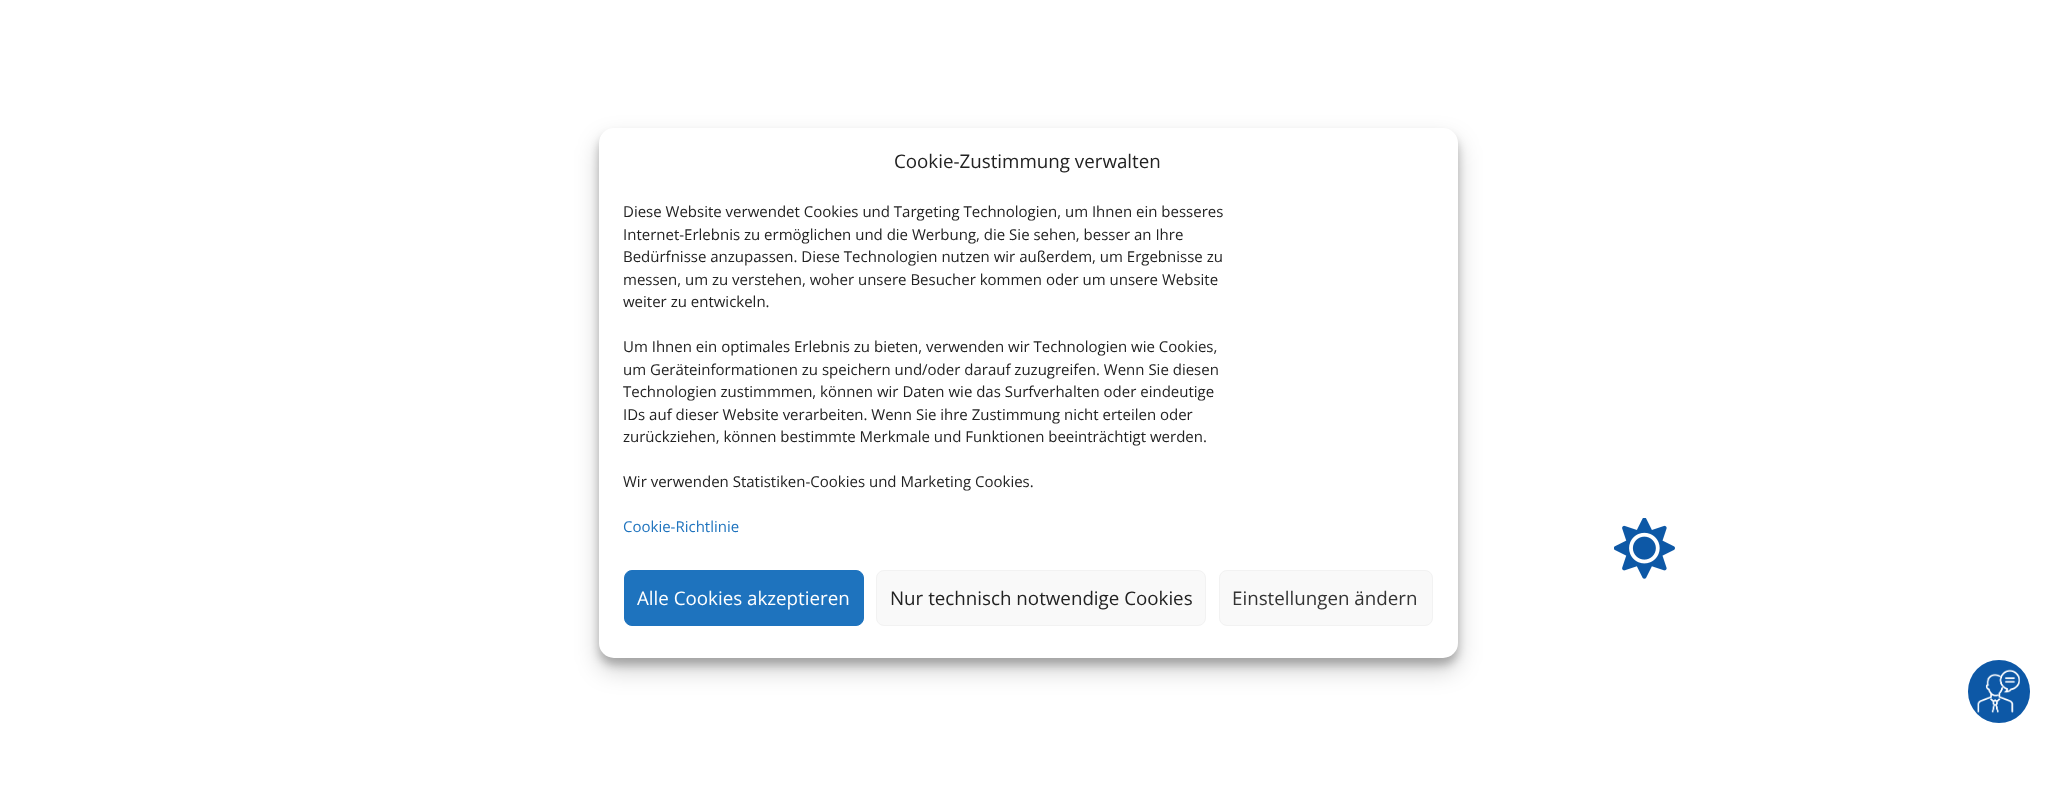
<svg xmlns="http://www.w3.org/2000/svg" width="2055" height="785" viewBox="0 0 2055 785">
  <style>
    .t1 { font: 18.75px Open Sans; fill: #222; }
    .t2 { font: 15px Open Sans; fill: #222; }
    .t3 { font: 15px Open Sans; fill: #1e73be; }
    .t4 { font: 18.75px Open Sans; fill: #fff; }
    .t5 { font: 18.75px Open Sans; fill: #333; }
  </style>
  <rect width="100%" height="100%" fill="#fff"/>
  <rect x="599" y="135" width="859" height="530" rx="15" fill="#0000003b" filter="blur(4px)"/>
  <rect x="599" y="140" width="859" height="530" rx="15" fill="#00000030" filter="blur(12.5px)"/>
  <rect x="599" y="128" width="859" height="530" rx="15" fill="#fff"/>
  <text x="894" y="168" class="t1">Cookie-Zustimmung verwalten</text>
  <text x="623" y="217" class="t2">Diese Website verwendet Cookies und Targeting Technologien, um Ihnen ein besseres</text>
  <text x="623" y="240" class="t2">Internet-Erlebnis zu ermöglichen und die Werbung, die Sie sehen, besser an Ihre</text>
  <text x="623" y="262" class="t2">Bedürfnisse anzupassen. Diese Technologien nutzen wir außerdem, um Ergebnisse zu</text>
  <text x="623" y="285" class="t2">messen, um zu verstehen, woher unsere Besucher kommen oder um unsere Website</text>
  <text x="623" y="307" class="t2">weiter zu entwickeln.</text>
  <text x="623" y="352" class="t2">Um Ihnen ein optimales Erlebnis zu bieten, verwenden wir Technologien wie Cookies,</text>
  <text x="623" y="375" class="t2">um Geräteinformationen zu speichern und/oder darauf zuzugreifen. Wenn Sie diesen</text>
  <text x="623" y="397" class="t2">Technologien zustimmmen, können wir Daten wie das Surfverhalten oder eindeutige</text>
  <text x="623" y="420" class="t2">IDs auf dieser Website verarbeiten. Wenn Sie ihre Zustimmung nicht erteilen oder</text>
  <text x="623" y="442" class="t2">zurückziehen, können bestimmte Merkmale und Funktionen beeinträchtigt werden.</text>
  <text x="623" y="487" class="t2">Wir verwenden Statistiken-Cookies und Marketing Cookies.</text>
  <text x="623" y="532" class="t3">Cookie-Richtlinie</text>
  <rect x="624.5" y="570.5" width="239" height="55" rx="7.5" fill="#1e73be" stroke="#1e73be"/>
  <text x="637" y="605" class="t4">Alle Cookies akzeptieren</text>
  <rect x="876.5" y="570.5" width="329" height="55" rx="7.5" fill="#f9f9f9" stroke="#f2f2f2"/>
  <text x="890" y="605" class="t1">Nur technisch notwendige Cookies</text>
  <rect x="1219.5" y="570.5" width="213" height="55" rx="7.5" fill="#f9f9f9" stroke="#f2f2f2"/>
  <text x="1232" y="605" class="t5">Einstellungen ändern</text>
  <image x="1614" y="518" width="61" height="61" href="images/1.png"/>
  <rect x="1968" y="660" width="62" height="63" rx="31" fill="#0d58a6"/>
  <image x="1977" y="669" width="43" height="44" href="images/2.png"/>
</svg>
